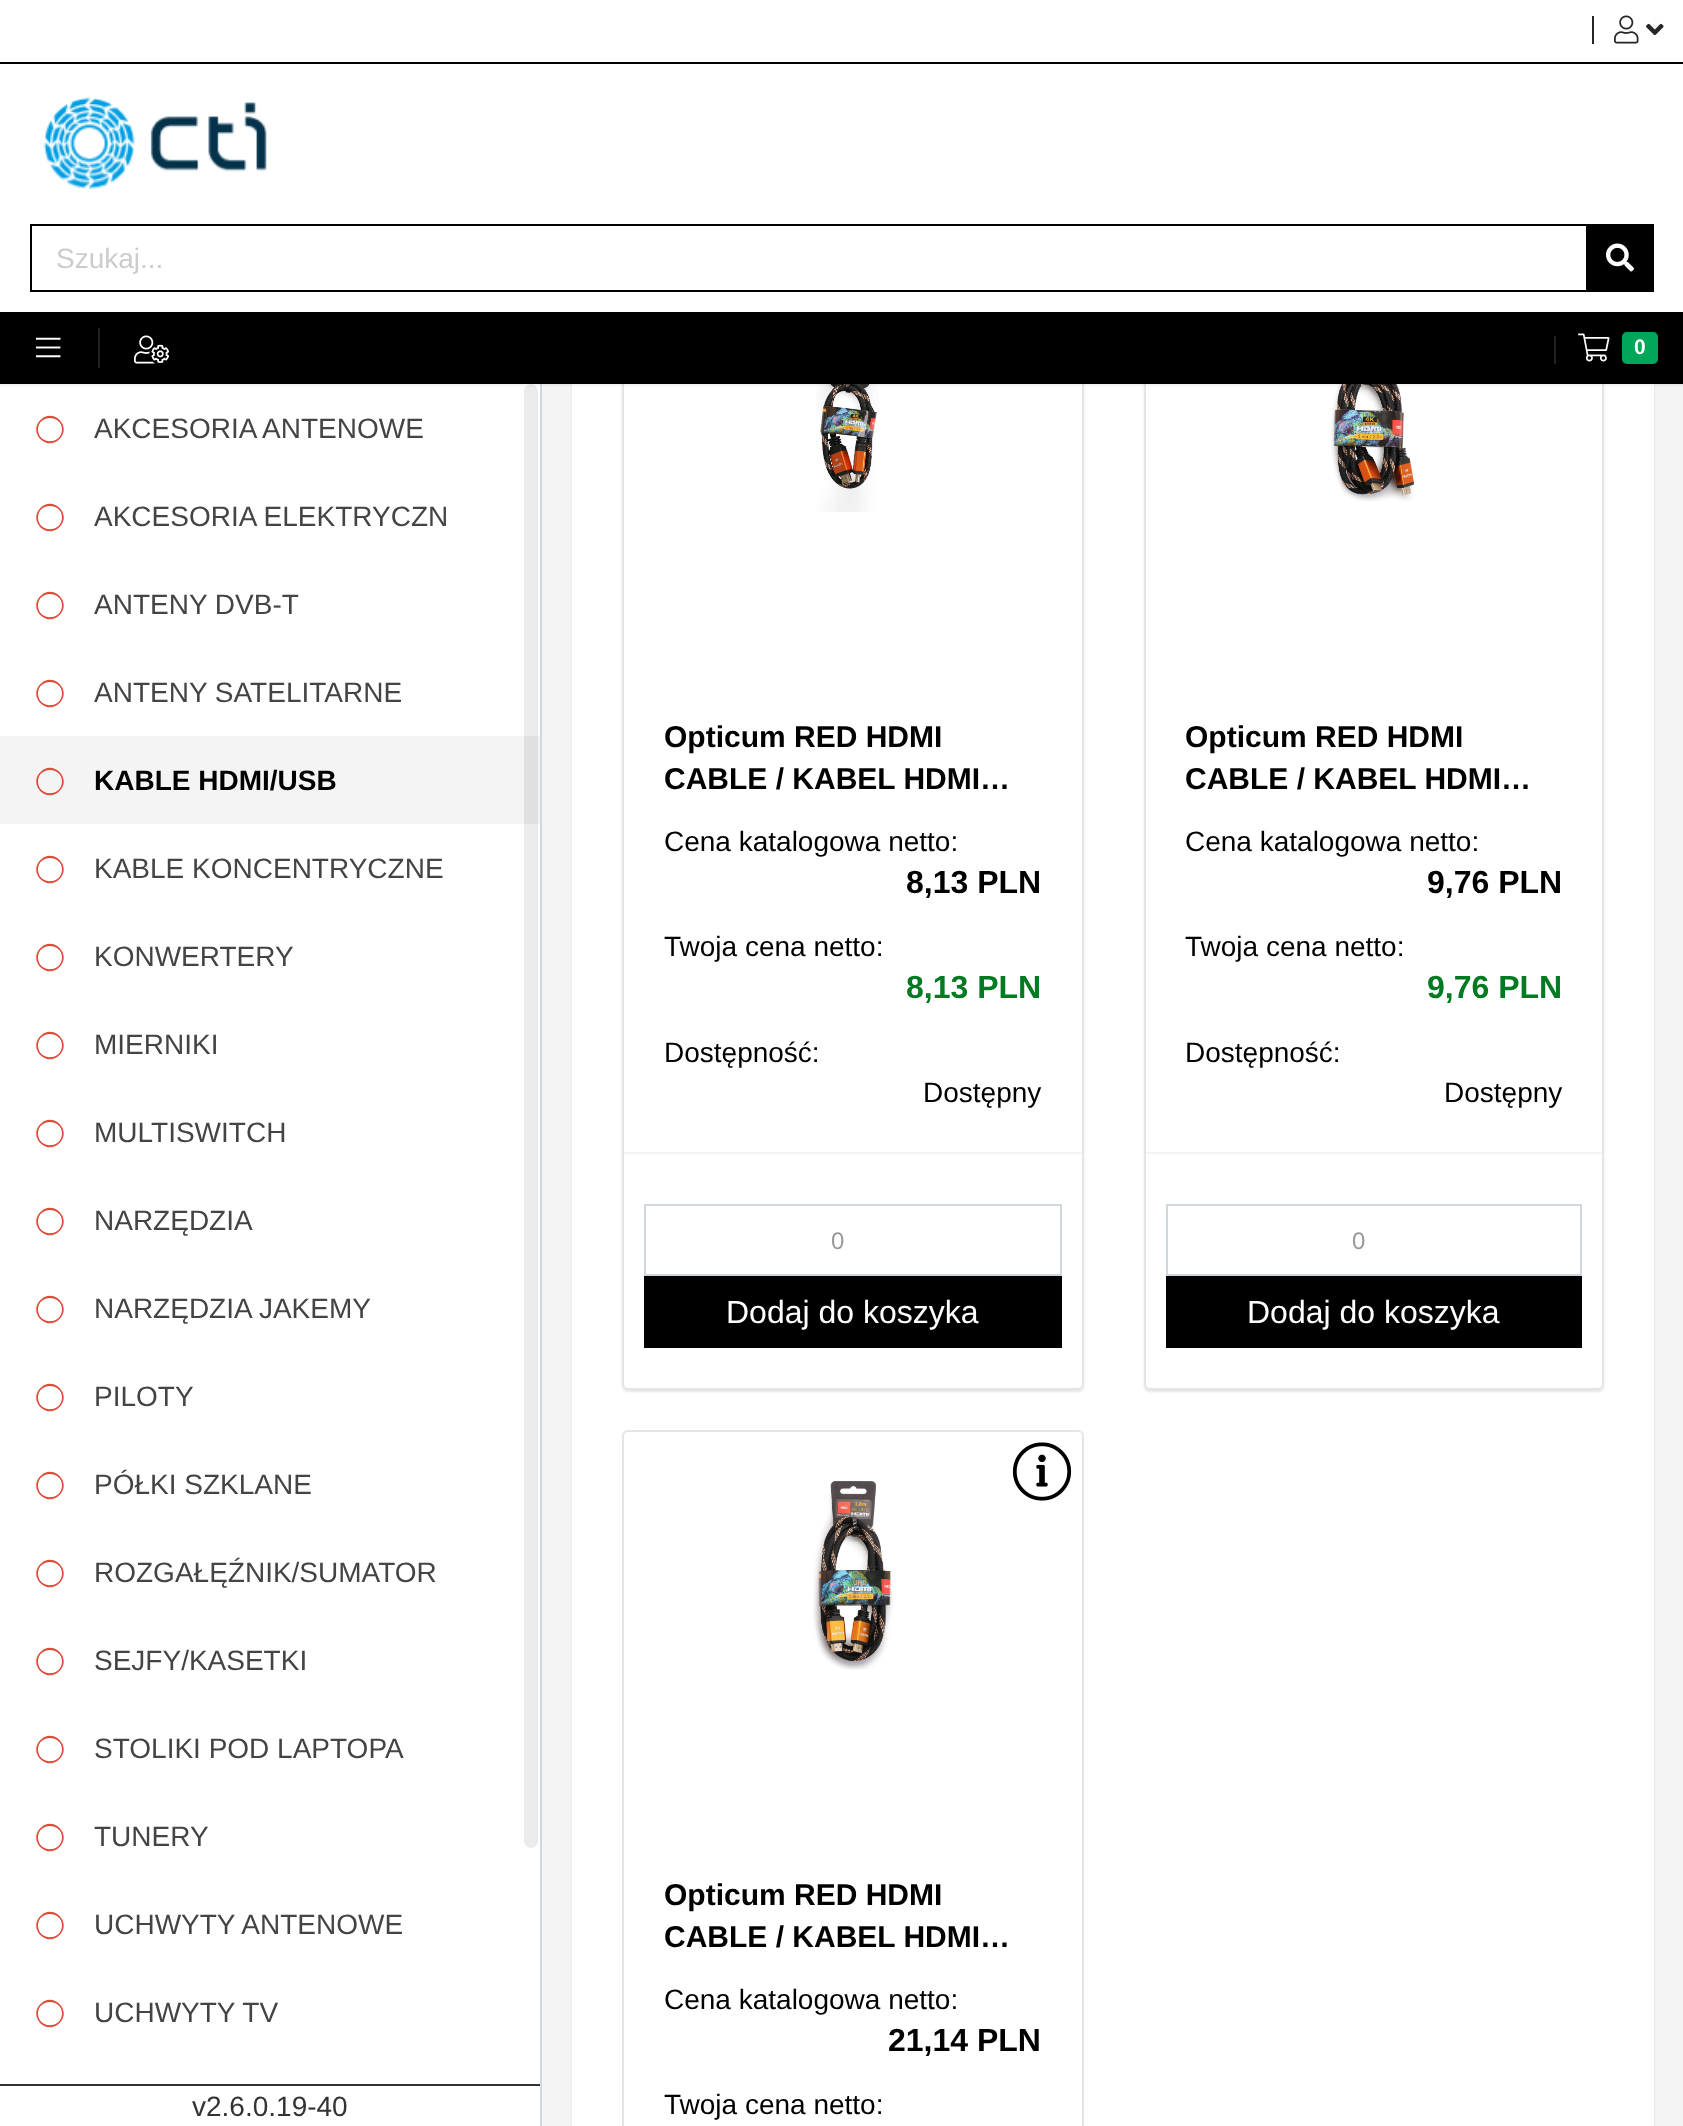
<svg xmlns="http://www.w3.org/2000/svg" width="1683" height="2126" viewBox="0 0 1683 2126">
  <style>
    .t1 { font: 28px Liberation Sans; fill: #ccc; }
    .t2 { font: bold 21px Liberation Sans; fill: #fff; }
    .t3 { font: 28px Liberation Sans; fill: #444; }
    .t4 { font: bold 28px Liberation Sans; fill: #000; }
    .t5 { font: 28px Liberation Sans; fill: #333; }
    .t6 { font: bold 30px Liberation Sans; fill: #000; }
    .t7 { font: 28px Liberation Sans; fill: #000; }
    .t8 { font: bold 32px Liberation Sans; fill: #000; }
    .t9 { font: bold 32px Liberation Sans; fill: #017a21; }
    .t10 { font: 24px Liberation Sans; fill: #999; }
    .t11 { font: 32px Liberation Sans; fill: #fff; }
  </style>
  <rect width="100%" height="100%" fill="#fff"/>
  <rect x="0" y="736" width="540" height="88" fill="#f4f4f5"/>
  <rect x="524" y="384" width="14" height="1464" rx="7" fill="#00000014"/>
  <rect x="542" y="384" width="1141" height="1742" fill="#f4f4f5"/>
  <rect x="540" y="384" width="2" height="1742" fill="#d2d6de"/>
  <rect x="572" y="-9" width="1082" height="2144" rx="6" fill="#0000001a" filter="blur(1px)"/>
  <rect x="572" y="384" width="1082" height="1742" fill="#fff"/>
  <rect x="622" y="274" width="462" height="1118" rx="6" fill="#0000001a" filter="blur(1px)"/>
  <rect x="623" y="273" width="460" height="1116" rx="5" fill="#fff" stroke="#e5e5e5" stroke-width="2"/>
  <image x="816" y="384" width="63" height="128" href="images/8.png"/>
  <rect x="1144" y="274" width="460" height="1118" rx="6" fill="#0000001a" filter="blur(1px)"/>
  <rect x="1145" y="273" width="458" height="1116" rx="5" fill="#fff" stroke="#e5e5e5" stroke-width="2"/>
  <image x="1331" y="384" width="84" height="118" href="images/9.png"/>
  <rect x="0" y="2" width="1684" height="384" fill="#0000000d" filter="blur(1px)"/>
  <rect x="0" y="0" width="1683" height="62" fill="#fff"/>
  <rect x="0" y="62" width="1683" height="2" fill="#000"/>
  <rect x="1592" y="16" width="2" height="28" fill="#262626"/>
  <image x="1614" y="15" width="25" height="29" href="images/1.png"/>
  <image x="1646" y="23" width="18" height="13" href="images/2.png"/>
  <rect x="0" y="64" width="1683" height="248" fill="#fff"/>
  <image x="43" y="97" width="224" height="93" href="images/3.png"/>
  <rect x="31" y="225" width="1622" height="66" fill="none" stroke="#000" stroke-width="2"/>
  <text x="56" y="268" class="t1">Szukaj...</text>
  <rect x="1586" y="226" width="66" height="64" fill="#000"/>
  <image x="1606" y="243" width="28" height="29" href="images/4.png"/>
  <rect x="0" y="312" width="1683" height="72" fill="#000"/>
  <rect x="98" y="328" width="2" height="40" fill="#222"/>
  <image x="36" y="337" width="25" height="21" href="images/5.png"/>
  <rect x="1554" y="336" width="2" height="28" fill="#222"/>
  <image x="134" y="335" width="35" height="29" href="images/6.png"/>
  <image x="1578" y="333" width="32" height="29" href="images/7.png"/>
  <rect x="1622" y="332" width="36" height="32" rx="5" fill="#00a65a"/>
  <text x="1634" y="354" class="t2">0</text>
  <path d="M40.5 420C53 407 72.5 426.5 59.5 439C47 452 27.5 432.5 40.5 420ZM62 429.5C62 414 38 414 38 429.5C38 445 62 445 62 429.5Z" fill="#dd4b39"/>
  <text x="94" y="438" class="t3">AKCESORIA ANTENOWE</text>
  <path d="M40.5 508C53 495 72.5 514.5 59.5 527C47 540 27.5 520.5 40.5 508ZM62 517.5C62 502 38 502 38 517.5C38 533 62 533 62 517.5Z" fill="#dd4b39"/>
  <text x="94" y="526" class="t3">AKCESORIA ELEKTRYCZN</text>
  <path d="M40.5 596C53 583 72.5 602.5 59.5 615C47 628 27.5 608.5 40.5 596ZM62 605.5C62 590 38 590 38 605.5C38 621 62 621 62 605.5Z" fill="#dd4b39"/>
  <text x="94" y="614" class="t3">ANTENY DVB-T</text>
  <path d="M40.5 684C53 671 72.5 690.5 59.5 703C47 716 27.5 696.5 40.5 684ZM62 693.5C62 678 38 678 38 693.5C38 709 62 709 62 693.5Z" fill="#dd4b39"/>
  <text x="94" y="702" class="t3">ANTENY SATELITARNE</text>
  <path d="M40.5 772C53 759 72.5 778.5 59.5 791C47 804 27.5 784.5 40.5 772ZM62 781.5C62 766 38 766 38 781.5C38 797 62 797 62 781.5Z" fill="#dd4b39"/>
  <text x="94" y="790" class="t4">KABLE HDMI/USB</text>
  <path d="M40.5 860C53 847 72.5 866.5 59.5 879C47 892 27.5 872.5 40.5 860ZM62 869.5C62 854 38 854 38 869.5C38 885 62 885 62 869.5Z" fill="#dd4b39"/>
  <text x="94" y="878" class="t3">KABLE KONCENTRYCZNE</text>
  <path d="M40.5 948C53 935 72.5 954.5 59.5 967C47 980 27.5 960.5 40.5 948ZM62 957.5C62 942 38 942 38 957.5C38 973 62 973 62 957.5Z" fill="#dd4b39"/>
  <text x="94" y="966" class="t3">KONWERTERY</text>
  <path d="M40.5 1036C53 1023 72.5 1042.5 59.5 1055C47 1068 27.5 1048.5 40.5 1036ZM62 1045.5C62 1030 38 1030 38 1045.5C38 1061 62 1061 62 1045.5Z" fill="#dd4b39"/>
  <text x="94" y="1054" class="t3">MIERNIKI</text>
  <path d="M40.5 1124C53 1111 72.5 1130.5 59.5 1143C47 1156 27.5 1136.5 40.5 1124ZM62 1133.5C62 1118 38 1118 38 1133.5C38 1149 62 1149 62 1133.5Z" fill="#dd4b39"/>
  <text x="94" y="1142" class="t3">MULTISWITCH</text>
  <path d="M40.5 1212C53 1199 72.5 1218.5 59.5 1231C47 1244 27.5 1224.5 40.5 1212ZM62 1221.5C62 1206 38 1206 38 1221.5C38 1237 62 1237 62 1221.5Z" fill="#dd4b39"/>
  <text x="94" y="1230" class="t3">NARZĘDZIA</text>
  <path d="M40.5 1300C53 1287 72.5 1306.5 59.5 1319C47 1332 27.5 1312.5 40.5 1300ZM62 1309.5C62 1294 38 1294 38 1309.5C38 1325 62 1325 62 1309.5Z" fill="#dd4b39"/>
  <text x="94" y="1318" class="t3">NARZĘDZIA JAKEMY</text>
  <path d="M40.5 1388C53 1375 72.5 1394.5 59.5 1407C47 1420 27.5 1400.5 40.5 1388ZM62 1397.5C62 1382 38 1382 38 1397.5C38 1413 62 1413 62 1397.5Z" fill="#dd4b39"/>
  <text x="94" y="1406" class="t3">PILOTY</text>
  <path d="M40.5 1476C53 1463 72.5 1482.5 59.5 1495C47 1508 27.5 1488.5 40.5 1476ZM62 1485.5C62 1470 38 1470 38 1485.5C38 1501 62 1501 62 1485.5Z" fill="#dd4b39"/>
  <text x="94" y="1494" class="t3">PÓŁKI SZKLANE</text>
  <path d="M40.5 1564C53 1551 72.5 1570.5 59.5 1583C47 1596 27.5 1576.5 40.5 1564ZM62 1573.5C62 1558 38 1558 38 1573.5C38 1589 62 1589 62 1573.5Z" fill="#dd4b39"/>
  <text x="94" y="1582" class="t3">ROZGAŁĘŹNIK/SUMATOR</text>
  <path d="M40.5 1652C53 1639 72.5 1658.5 59.5 1671C47 1684 27.5 1664.5 40.5 1652ZM62 1661.5C62 1646 38 1646 38 1661.5C38 1677 62 1677 62 1661.5Z" fill="#dd4b39"/>
  <text x="94" y="1670" class="t3">SEJFY/KASETKI</text>
  <path d="M40.5 1740C53 1727 72.5 1746.5 59.5 1759C47 1772 27.5 1752.5 40.5 1740ZM62 1749.5C62 1734 38 1734 38 1749.5C38 1765 62 1765 62 1749.5Z" fill="#dd4b39"/>
  <text x="94" y="1758" class="t3">STOLIKI POD LAPTOPA</text>
  <path d="M40.5 1828C53 1815 72.5 1834.5 59.5 1847C47 1860 27.5 1840.5 40.5 1828ZM62 1837.5C62 1822 38 1822 38 1837.5C38 1853 62 1853 62 1837.5Z" fill="#dd4b39"/>
  <text x="94" y="1846" class="t3">TUNERY</text>
  <path d="M40.5 1916C53 1903 72.5 1922.5 59.5 1935C47 1948 27.5 1928.5 40.5 1916ZM62 1925.5C62 1910 38 1910 38 1925.5C38 1941 62 1941 62 1925.5Z" fill="#dd4b39"/>
  <text x="94" y="1934" class="t3">UCHWYTY ANTENOWE</text>
  <path d="M40.5 2004C53 1991 72.5 2010.5 59.5 2023C47 2036 27.5 2016.5 40.5 2004ZM62 2013.5C62 1998 38 1998 38 2013.5C38 2029 62 2029 62 2013.5Z" fill="#dd4b39"/>
  <text x="94" y="2022" class="t3">UCHWYTY TV</text>
  <rect x="0" y="2084" width="540" height="2" fill="#333"/>
  <text x="192" y="2116" class="t5">v2.6.0.19-40</text>
  <text x="664" y="747" class="t6">Opticum RED HDMI</text>
  <text x="664" y="789" class="t6">CABLE / KABEL HDMI…</text>
  <text x="664" y="851" class="t7">Cena katalogowa netto:</text>
  <text x="906" y="893" class="t8">8,13 PLN</text>
  <text x="664" y="956" class="t7">Twoja cena netto:</text>
  <text x="906" y="998" class="t9">8,13 PLN</text>
  <text x="664" y="1062" class="t7">Dostępność:</text>
  <text x="923" y="1102" class="t7">Dostępny</text>
  <rect x="624" y="1152" width="458" height="2" fill="#f4f4f4"/>
  <rect x="645" y="1205" width="416" height="70" fill="none" stroke="#d2d6de" stroke-width="2"/>
  <text x="831" y="1249" class="t10">0</text>
  <rect x="644" y="1276" width="418" height="72" fill="#000"/>
  <text x="726" y="1323" class="t11">Dodaj do koszyka</text>
  <text x="1185" y="747" class="t6">Opticum RED HDMI</text>
  <text x="1185" y="789" class="t6">CABLE / KABEL HDMI…</text>
  <text x="1185" y="851" class="t7">Cena katalogowa netto:</text>
  <text x="1427" y="893" class="t8">9,76 PLN</text>
  <text x="1185" y="956" class="t7">Twoja cena netto:</text>
  <text x="1427" y="998" class="t9">9,76 PLN</text>
  <text x="1185" y="1062" class="t7">Dostępność:</text>
  <text x="1444" y="1102" class="t7">Dostępny</text>
  <rect x="1146" y="1152" width="456" height="2" fill="#f4f4f4"/>
  <rect x="1167" y="1205" width="414" height="70" fill="none" stroke="#d2d6de" stroke-width="2"/>
  <text x="1352" y="1249" class="t10">0</text>
  <rect x="1166" y="1276" width="416" height="72" fill="#000"/>
  <text x="1247" y="1323" class="t11">Dodaj do koszyka</text>
  <rect x="623" y="1431" width="460" height="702" rx="5" fill="none" stroke="#e5e5e5" stroke-width="2"/>
  <image x="1012" y="1442" width="60" height="59" href="images/10.png"/>
  <image x="813" y="1480" width="81" height="190" href="images/11.png"/>
  <text x="664" y="1905" class="t6">Opticum RED HDMI</text>
  <text x="664" y="1947" class="t6">CABLE / KABEL HDMI…</text>
  <text x="664" y="2009" class="t7">Cena katalogowa netto:</text>
  <text x="888" y="2051" class="t8">21,14 PLN</text>
  <text x="664" y="2114" class="t7">Twoja cena netto:</text>
</svg>
